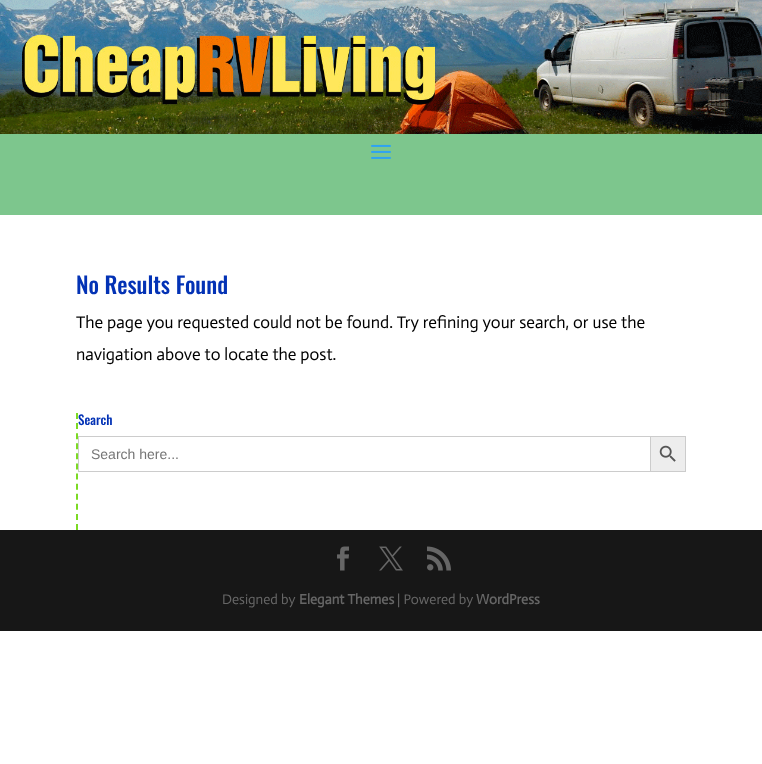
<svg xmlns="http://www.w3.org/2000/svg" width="762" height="764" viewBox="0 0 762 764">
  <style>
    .t1 { font: 500 23px Oswald; fill: #0332b5; }
    .t2 { font: 17px Actor; fill: #000; }
    .t3 { font: 500 13px Oswald; fill: #0332b5; }
    .t4 { font: 14px Liberation Sans; fill: #757575; }
    .t5 { font: 14px Actor; fill: #666; }
    .t6 { font: bold 14px Actor; fill: #666; }
  </style>
  <rect width="100%" height="100%" fill="#fff"/>
  <image x="0" y="0" width="762" height="134" href="images/1.png"/>
  <rect x="0" y="134" width="762" height="81" fill="#7dc68d"/>
  <image x="371" y="144" width="20" height="15" href="images/2.png"/>
  <text x="76" y="294" class="t1">No Results Found</text>
  <text x="76" y="328" class="t2">The page you requested could not be found. Try refining your search, or use the</text>
  <text x="76" y="360" class="t2">navigation above to locate the post.</text>
  <path d="M77 413V530" fill="none" stroke="#7cda24" stroke-width="2" stroke-dasharray="6 4.09"/>
  <text x="78" y="425" class="t3">Search</text>
  <rect x="78" y="436" width="572" height="1" fill="#ccc"/>
  <rect x="78" y="471" width="572" height="1" fill="#ccc"/>
  <rect x="78" y="436" width="1" height="36" fill="#ccc"/>
  <text x="91" y="459" class="t4">Search here...</text>
  <rect x="650.5" y="436.5" width="35" height="35" fill="#ededed" stroke="#ccc"/>
  <image x="659" y="445" width="17" height="17" href="images/3.png"/>
  <rect x="0" y="530" width="762" height="101" fill="#171717"/>
  <image x="337" y="546" width="12" height="25" href="images/4.png"/>
  <image x="379" y="546" width="24" height="25" href="images/5.png"/>
  <image x="427" y="546" width="24" height="25" href="images/6.png"/>
  <text x="222" y="604" class="t5">Designed by</text>
  <text x="299" y="604" class="t6">Elegant Themes</text>
  <text x="397" y="604" class="t5">| Powered by</text>
  <text x="476" y="604" class="t6">WordPress</text>
</svg>
